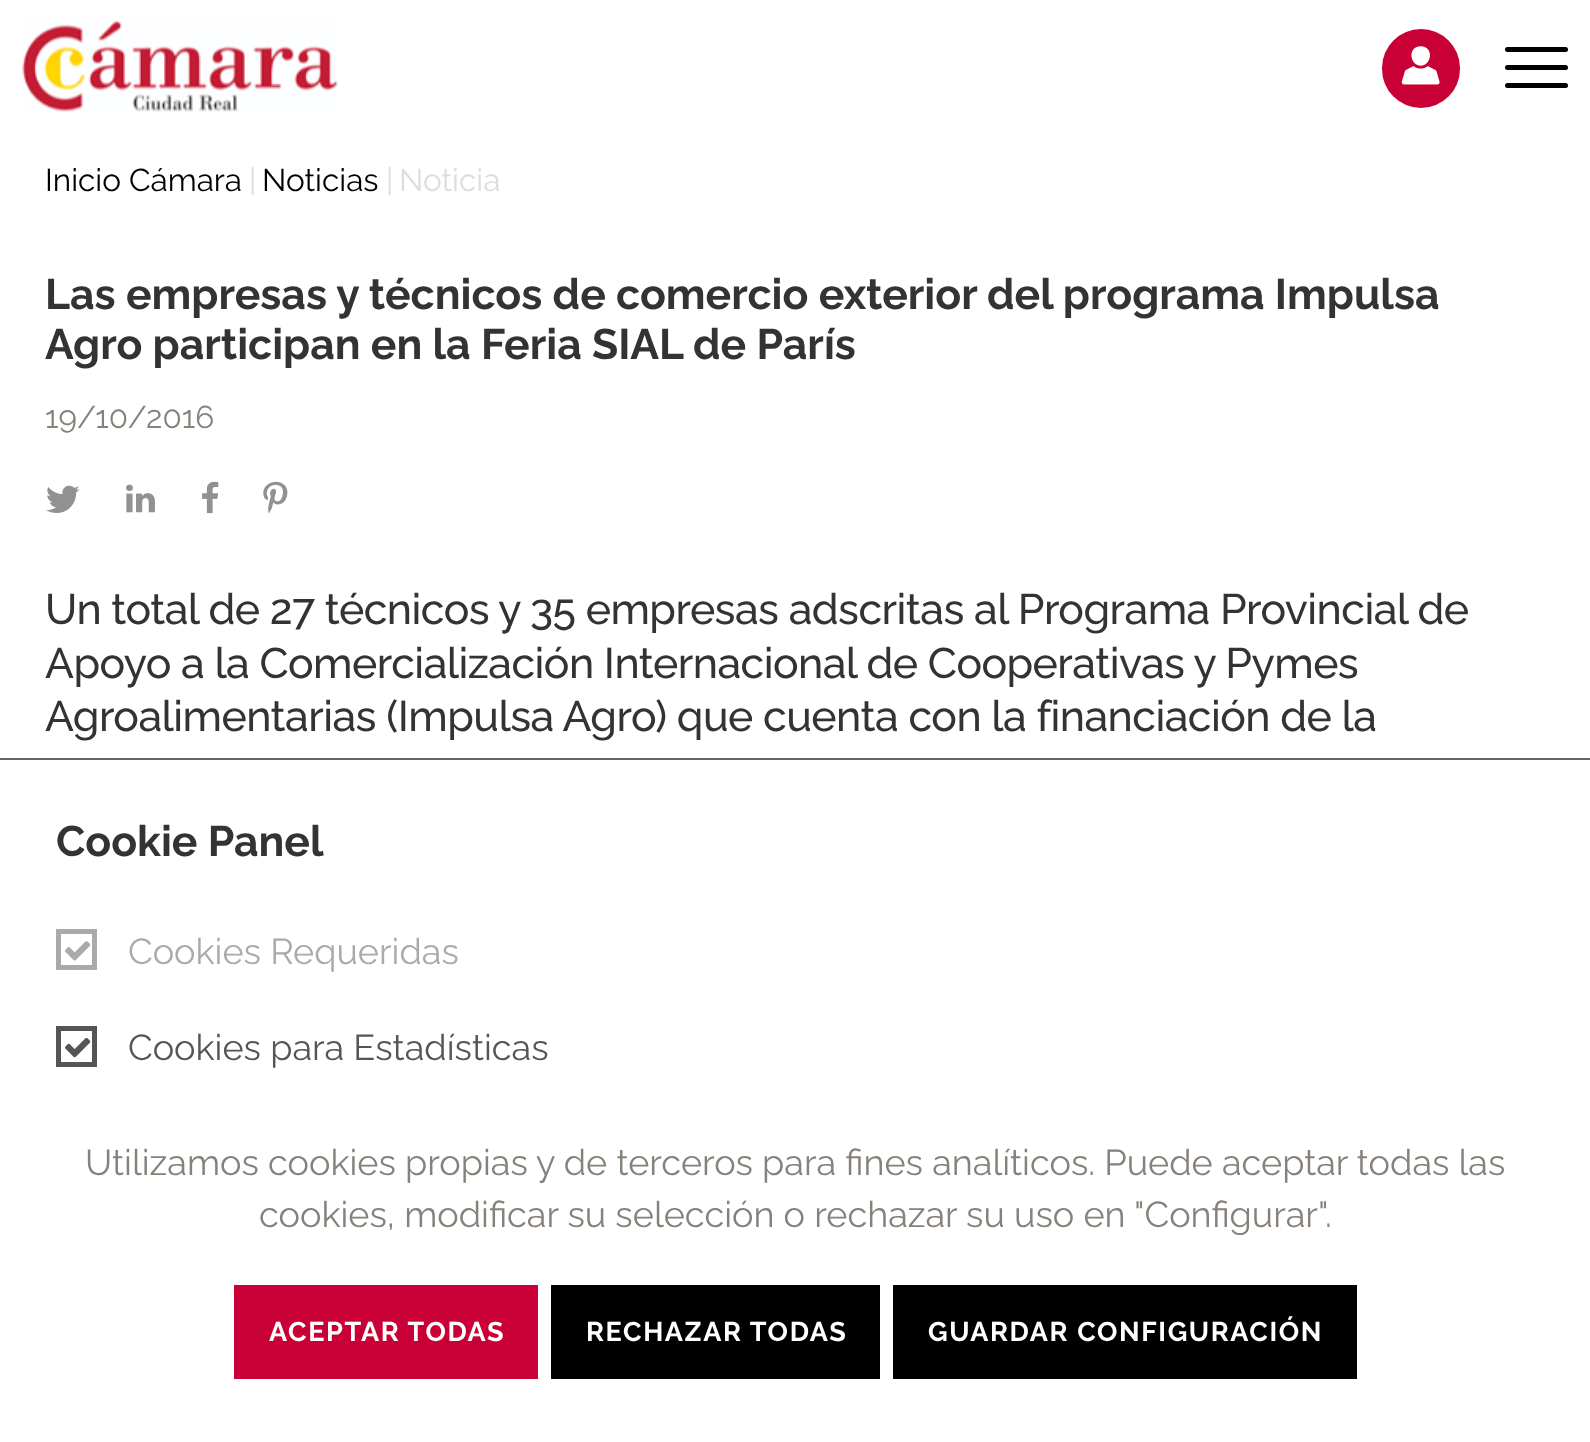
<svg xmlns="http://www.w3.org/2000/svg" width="1590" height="1442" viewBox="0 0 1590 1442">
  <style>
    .t1 { font: 31.5px Raleway; fill: #000; }
    .t2 { font: 31.5px Raleway; fill: #ddd; }
    .t3 { font: bold 42.75px Raleway; fill: #333; }
    .t4 { font: 31.5px Raleway; fill: #86817b; }
    .t5 { font: 500 42.75px Raleway; letter-spacing: -0.55px; fill: #333; }
    .t6 { font: 36px Raleway; fill: #aaa; }
    .t7 { font: 36px Raleway; fill: #555; }
    .t8 { font: 36px Raleway; fill: #86817b; }
    .t9 { font: bold 27px Raleway; letter-spacing: 1.6px; fill: #fff; }
  </style>
  <rect width="100%" height="100%" fill="#fff"/>
  <image x="22" y="20" width="316" height="93" href="images/1.png"/>
  <rect x="1382" y="29" width="78" height="79" rx="39" fill="#c90036"/>
  <image x="1401" y="46" width="39" height="39" href="images/2.png"/>
  <rect x="1505" y="47" width="63" height="5" rx="2.5" fill="#000"/>
  <rect x="1505" y="65" width="63" height="5" rx="2.5" fill="#000"/>
  <rect x="1505" y="83" width="63" height="5" rx="2.5" fill="#000"/>
  <text x="45" y="191" class="t1">Inicio Cámara</text>
  <text x="249" y="191" class="t2">|</text>
  <text x="262" y="191" class="t1">Noticias</text>
  <text x="386" y="191" class="t2">|</text>
  <text x="399" y="191" class="t2">Noticia</text>
  <text x="45" y="309" class="t3">Las empresas y técnicos de comercio exterior del programa Impulsa</text>
  <text x="45" y="359" class="t3">Agro participan en la Feria SIAL de París</text>
  <text x="45" y="428" class="t4">19/10/2016</text>
  <image x="46" y="485" width="34" height="28" href="images/3.png"/>
  <image x="126" y="484" width="29" height="29" href="images/4.png"/>
  <image x="202" y="481" width="17" height="33" href="images/5.png"/>
  <image x="263" y="481" width="25" height="33" href="images/6.png"/>
  <text x="45" y="624" class="t5">Un total de 27 técnicos y 35 empresas adscritas al Programa Provincial de</text>
  <text x="45" y="678" class="t5">Apoyo a la Comercialización Internacional de Cooperativas y Pymes</text>
  <text x="45" y="731" class="t5">Agroalimentarias (Impulsa Agro) que cuenta con la financiación de la</text>
  <rect x="0" y="758" width="1590" height="2" fill="#666"/>
  <text x="56" y="856" class="t3">Cookie Panel</text>
  <rect x="58.5" y="931.5" width="36" height="36" fill="none" stroke="#aaa" stroke-width="5"/>
  <text x="128" y="964" class="t6">Cookies Requeridas</text>
  <image x="65" y="941" width="26" height="20" href="images/7.png"/>
  <rect x="58.5" y="1028.5" width="36" height="36" fill="none" stroke="#555" stroke-width="5"/>
  <text x="128" y="1060" class="t7">Cookies para Estadísticas</text>
  <image x="65" y="1037" width="26" height="21" href="images/8.png"/>
  <text x="85" y="1175" class="t8">Utilizamos cookies propias y de terceros para fines analíticos. Puede aceptar todas las</text>
  <text x="259" y="1227" class="t8">cookies, modificar su selección o rechazar su uso en "Configurar".</text>
  <rect x="234" y="1285" width="304" height="94" fill="#c90036"/>
  <text x="269" y="1341" class="t9">ACEPTAR TODAS</text>
  <rect x="551" y="1285" width="329" height="94" fill="#000"/>
  <text x="586" y="1341" class="t9">RECHAZAR TODAS</text>
  <rect x="893" y="1285" width="464" height="94" fill="#000"/>
  <text x="928" y="1341" class="t9">GUARDAR CONFIGURACIÓN</text>
</svg>
